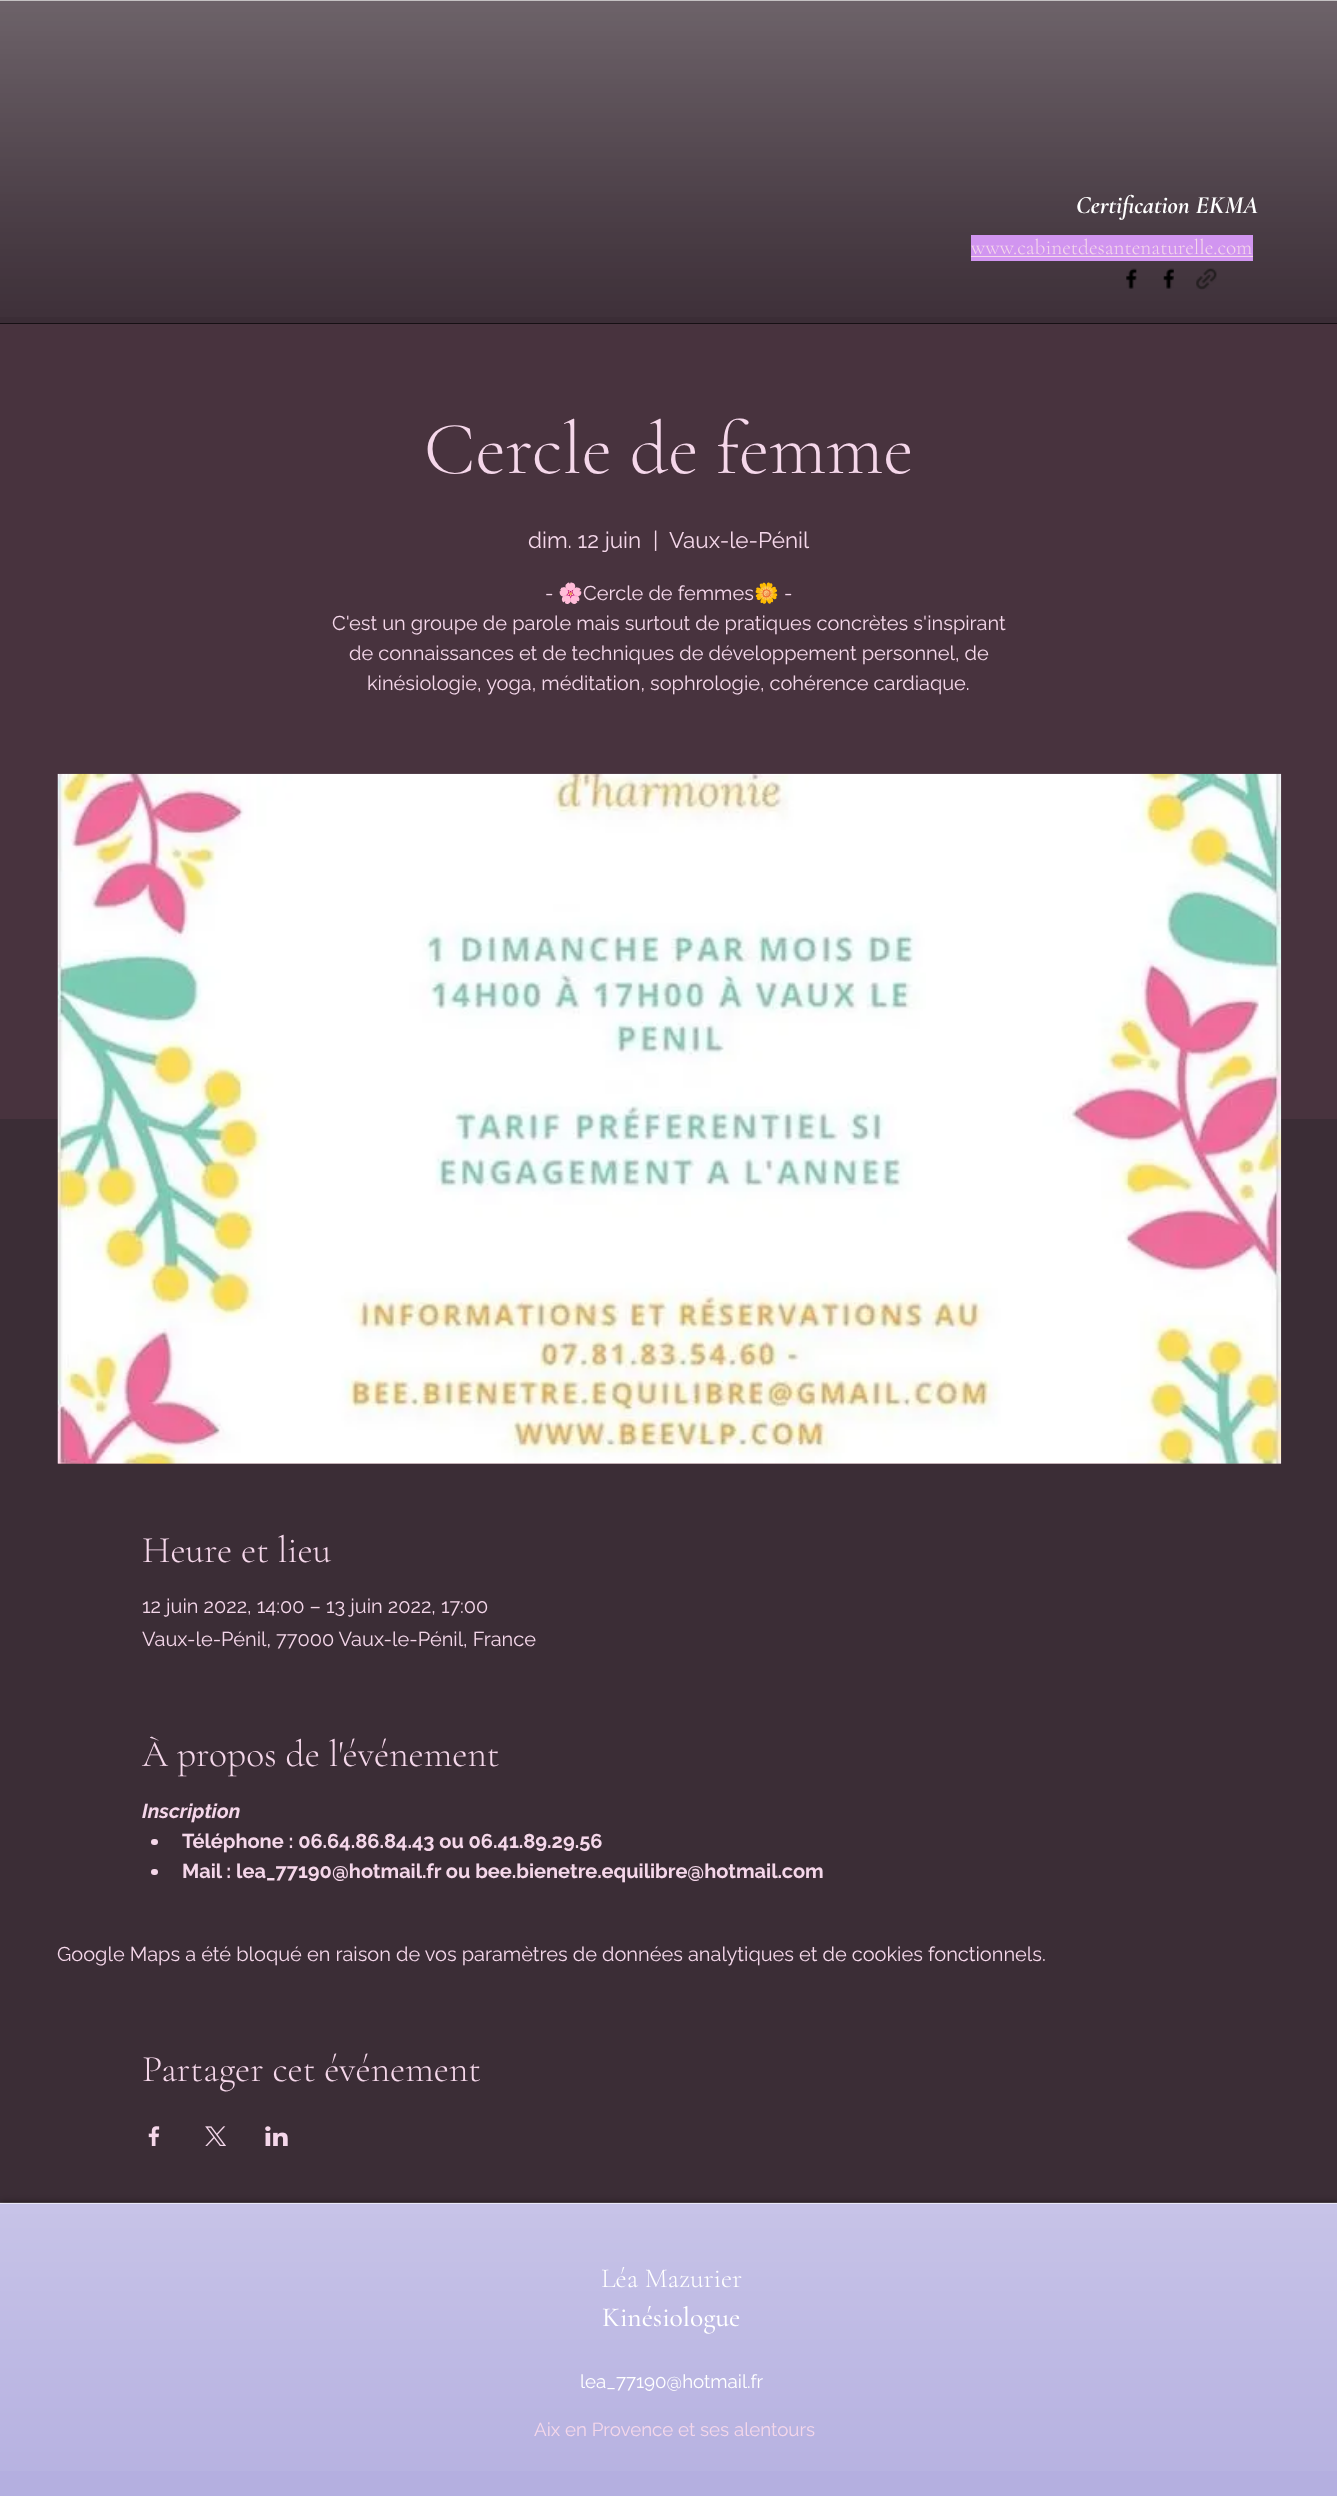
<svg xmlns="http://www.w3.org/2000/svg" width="1337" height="2496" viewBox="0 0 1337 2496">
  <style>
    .t1 { font: italic bold 25px Cormorant Garamond; fill: #fff; }
    .t2 { font: 300 21.25px Cormorant Garamond; fill: #f5d7ea; }
    .t3 { font: 300 75px Cormorant Garamond; fill: #f5d7ea; }
    .t4 { font: 22.5px Raleway; fill: #f5d7ea; }
    .t5 { font: 20px Raleway; fill: #f5d7ea; }
    .t6 { font: 20px Noto Color Emoji; fill: #f5d7ea; }
    .t7 { font: 300 37.5px Cormorant Garamond; fill: #f5d7ea; }
    .t8 { font: italic bold 20px Raleway; fill: #f5d7ea; }
    .t9 { font: bold 20px Raleway; fill: #f5d7ea; }
    .t10 { font: 300 27.5px Cormorant Garamond; fill: #fff; }
    .t11 { font: 500 27.5px Cormorant Garamond; fill: #fff; }
    .t12 { font: 18.75px Raleway; fill: #fff; }
    .t13 { font: 18.75px Raleway; fill: #f5d7ea; }
  </style>
  <rect width="100%" height="100%" fill="#3b2d36"/>
  <image x="0" y="1" width="1337" height="316" href="images/1.png"/>
  <rect x="0" y="323" width="1337" height="1" fill="#161014"/>
  <rect x="0" y="0" width="1337" height="1" fill="#c5c1c3"/>
  <text x="1076" y="213" class="t1">Certification EKMA</text>
  <rect x="971" y="235" width="282" height="26" fill="#d195f0"/>
  <text x="971" y="254" class="t2">www.cabinetdesantenaturelle.com</text>
  <rect x="971" y="256" width="282" height="1" fill="#f5d7ea"/>
  <image x="1126" y="268" width="11" height="21" href="images/2.png"/>
  <image x="1163" y="268" width="11" height="21" href="images/3.png"/>
  <image x="1196" y="268" width="21" height="22" href="images/4.png"/>
  <rect x="0" y="324" width="1337" height="795" fill="#48333e"/>
  <text x="424" y="473" class="t3">Cercle de femme</text>
  <text x="528" y="548" class="t4">dim. 12 juin</text>
  <text x="653" y="548" class="t4">|</text>
  <text x="669" y="548" class="t4">Vaux-le-Pénil</text>
  <text x="545" y="600" class="t5">-</text>
  <text x="558" y="600" class="t6">🌸</text>
  <text x="583" y="600" class="t5">Cercle de femmes</text>
  <text x="754" y="600" class="t6">🌼</text>
  <text x="784" y="600" class="t5">-</text>
  <text x="332" y="630" class="t5">C'est un groupe de parole mais surtout de pratiques concrètes s'inspirant</text>
  <text x="349" y="660" class="t5">de connaissances et de techniques de développement personnel, de</text>
  <text x="367" y="690" class="t5">kinésiologie, yoga, méditation, sophrologie, cohérence cardiaque.</text>
  <rect x="58" y="1463" width="1223" height="1" fill="#784c58"/>
  <image x="57" y="773" width="1225" height="691" href="images/5.png"/>
  <text x="142" y="1562" class="t7">Heure et lieu</text>
  <text x="142" y="1613" class="t5">12 juin 2022, 14:00 – 13 juin 2022, 17:00</text>
  <text x="142" y="1646" class="t5">Vaux-le-Pénil, 77000 Vaux-le-Pénil, France</text>
  <text x="142" y="1766" class="t7">À propos de l'événement</text>
  <text x="142" y="1818" class="t8">Inscription</text>
  <rect x="151" y="1839" width="7" height="6" rx="3" fill="#f5d7ea"/>
  <text x="182" y="1848" class="t9">Téléphone : 06.64.86.84.43 ou 06.41.89.29.56</text>
  <rect x="151" y="1869" width="7" height="6" rx="3" fill="#f5d7ea"/>
  <text x="182" y="1878" class="t9">Mail : lea_77190@hotmail.fr ou bee.bienetre.equilibre@hotmail.com</text>
  <text x="57" y="1961" class="t5">Google Maps a été bloqué en raison de vos paramètres de données analytiques et de cookies fonctionnels.</text>
  <text x="142" y="2081" class="t7">Partager cet événement</text>
  <image x="148" y="2126" width="12" height="20" href="images/6.png"/>
  <image x="205" y="2126" width="21" height="20" href="images/7.png"/>
  <image x="265" y="2126" width="23" height="20" href="images/8.png"/>
  <rect x="0" y="2203" width="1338" height="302" fill="#00000099" filter="blur(3px)"/>
  <rect x="0" y="2204" width="1337" height="292" fill="#b4afe0"/>
  <image x="0" y="2202" width="1337" height="269" href="images/9.png"/>
  <rect x="0" y="2203" width="1337" height="1" fill="#e9e7f6"/>
  <text x="601" y="2287" class="t10">Léa Mazurier</text>
  <text x="602" y="2326" class="t11">Kinésiologue</text>
  <text x="580" y="2388" class="t12">lea_77190@hotmail.fr</text>
  <text x="534" y="2436" class="t13">Aix en Provence et ses alentours</text>
</svg>
